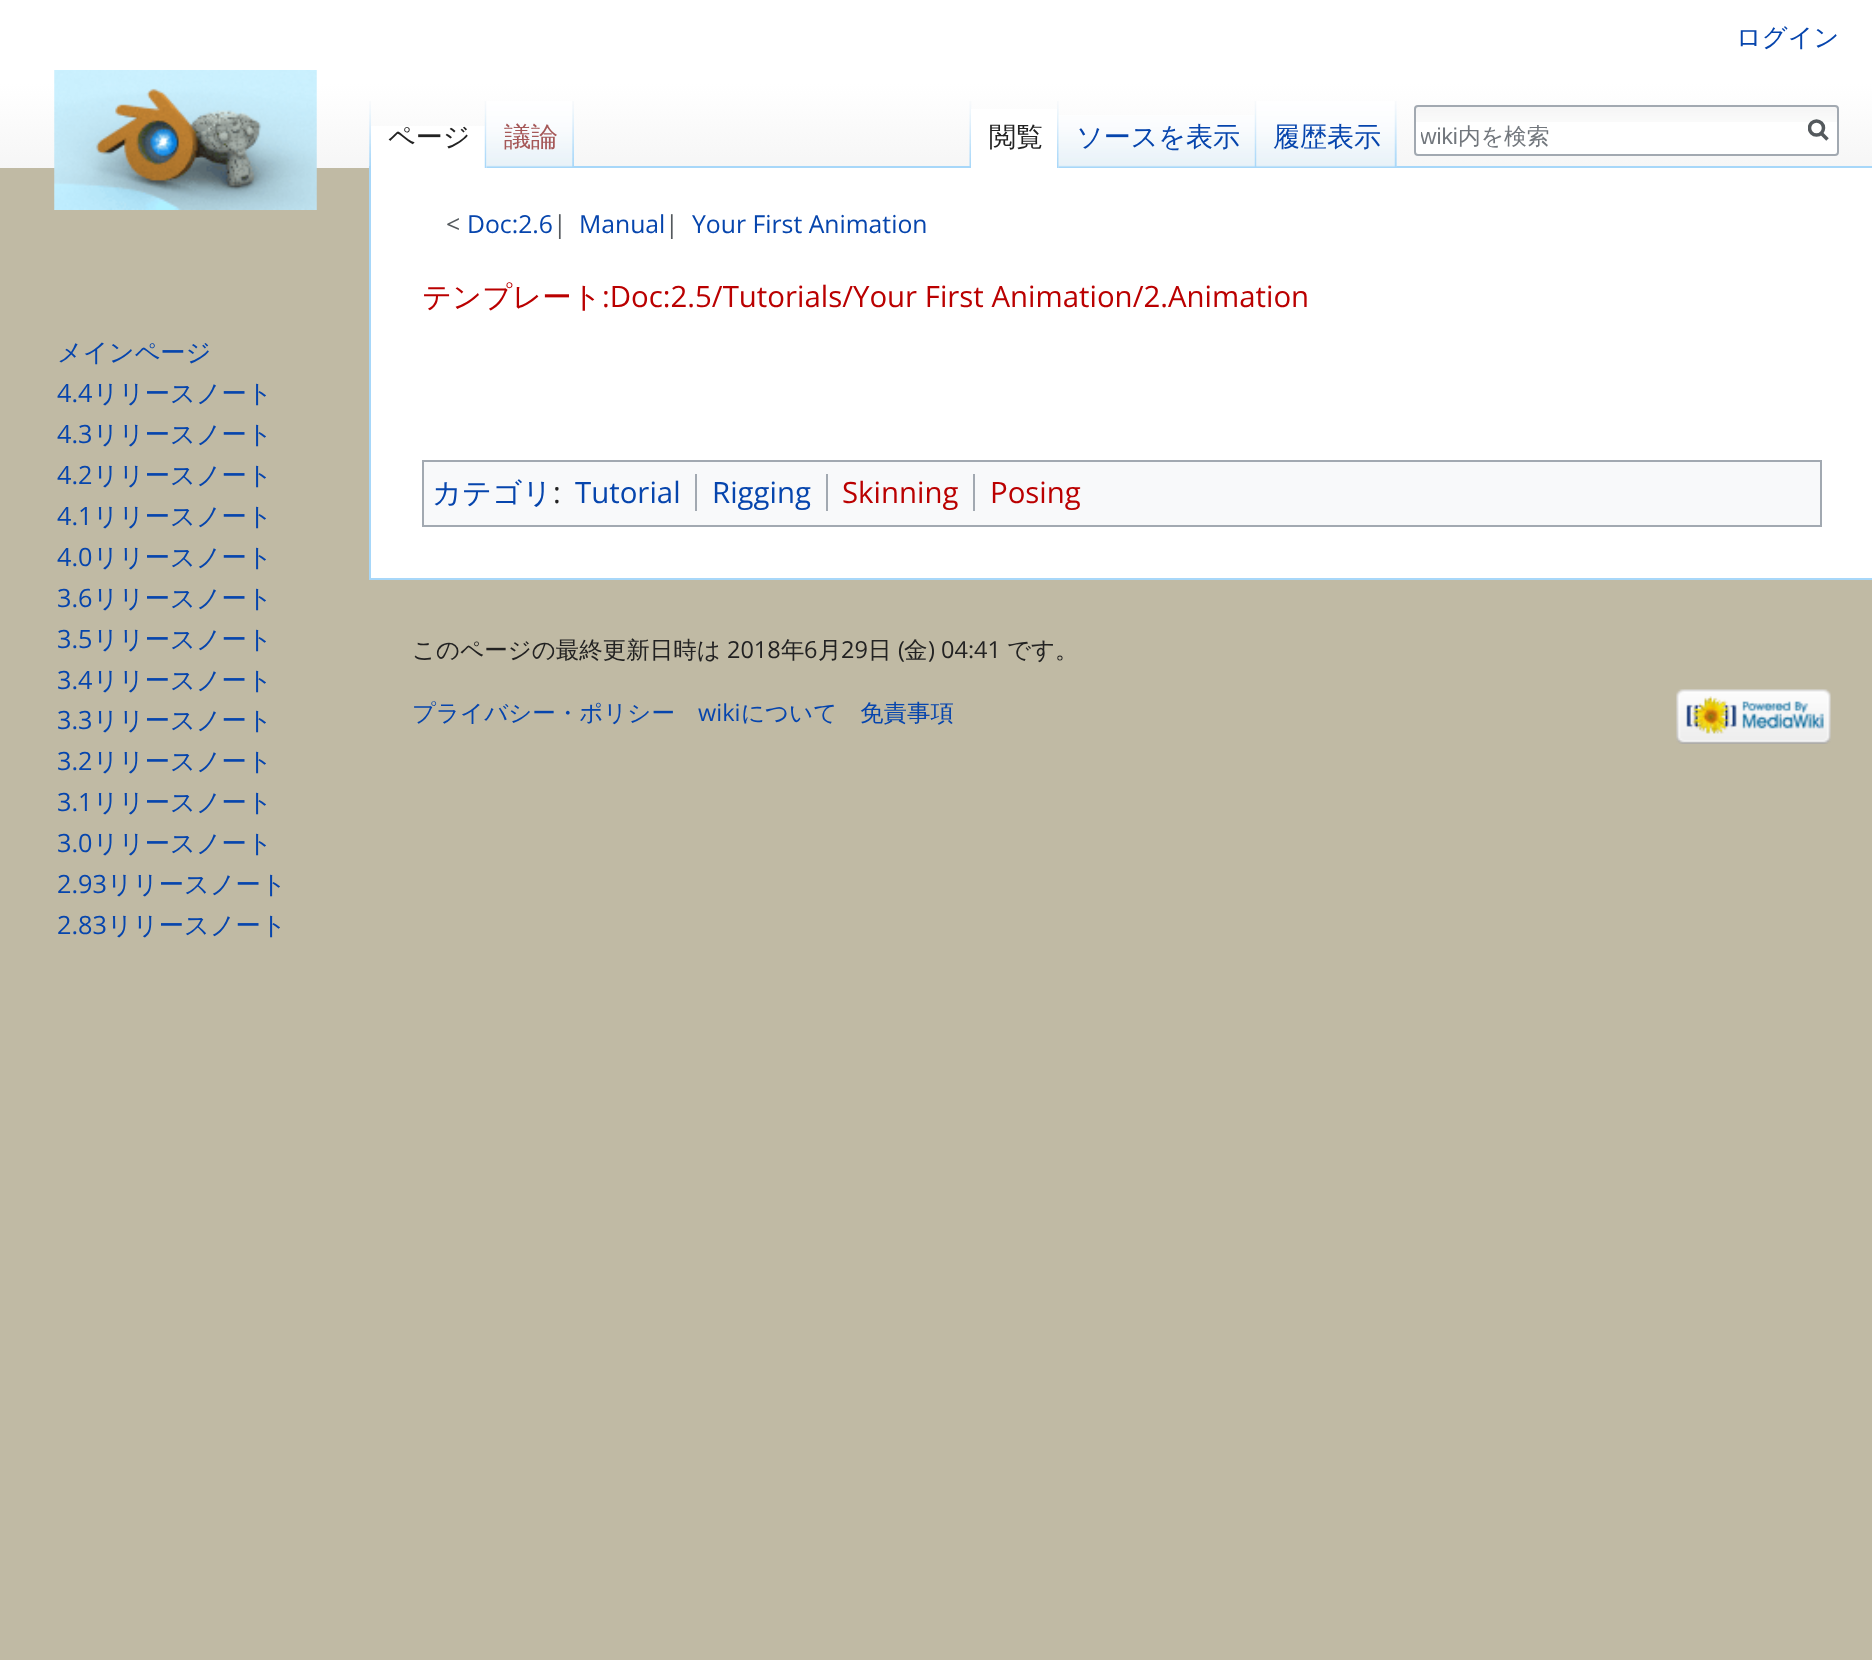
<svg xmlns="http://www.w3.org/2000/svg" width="1872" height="1660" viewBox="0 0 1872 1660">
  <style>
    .t1 { font: 500 25.25px WenQuanYi Zen Hei; fill: #0645ad; }
    .t2 { font: 500 27px WenQuanYi Zen Hei; fill: #222; }
    .t3 { font: 500 27px WenQuanYi Zen Hei; fill: #a55858; }
    .t4 { font: 500 27px WenQuanYi Zen Hei; fill: #0645ad; }
    .t5 { font: 22.75px Liberation Sans; fill: #72777d; }
    .t6 { font: 500 22.75px WenQuanYi Zen Hei; fill: #72777d; }
    .t7 { font: 25.25px Open Sans; fill: #0645ad; }
    .t8 { font: 24.75px Open Sans; fill: #54595d; }
    .t9 { font: 24.75px Open Sans; fill: #0645ad; }
    .t10 { font: 500 29.4px WenQuanYi Zen Hei; fill: #ba0000; }
    .t11 { font: 29.4px Open Sans; fill: #ba0000; }
    .t12 { font: 500 29.4px WenQuanYi Zen Hei; fill: #0645ad; }
    .t13 { font: 29.4px Open Sans; fill: #222; }
    .t14 { font: 29.4px Open Sans; fill: #0645ad; }
    .t15 { font: 500 23.5px WenQuanYi Zen Hei; fill: #222; }
    .t16 { font: 23.5px Open Sans; fill: #222; }
    .t17 { font: 500 23.5px WenQuanYi Zen Hei; fill: #0645ad; }
    .t18 { font: 23.5px Open Sans; fill: #0645ad; }
  </style>
  <defs>
    <linearGradient id="g1" gradientUnits="userSpaceOnUse" x1="936" y1="0" x2="936" y2="168"><stop offset="0.5" stop-color="#fff"/><stop offset="1" stop-color="#f6f6f6"/></linearGradient>
    <clipPath id="clip1"><rect x="1421" y="121" width="347" height="31"/></clipPath>
    <clipPath id="clip2"><rect x="1808" y="119" width="21" height="23"/></clipPath>
  </defs>
  <rect width="100%" height="100%" fill="#c0baa4"/>
  <rect x="0" y="0" width="1872" height="168" fill="url(#g1)"/>
  <text x="1736" y="46" class="t1">ログイン</text>
  <image x="369" y="101" width="2" height="65" href="images/1.png"/>
  <rect x="371" y="126" width="116" height="42" fill="#fff"/>
  <image x="484" y="101" width="3" height="67" href="images/2.png"/>
  <text x="388" y="146" class="t2">ページ</text>
  <image x="486" y="101" width="88" height="67" href="images/3.png"/>
  <image x="572" y="101" width="2" height="66" href="images/4.png"/>
  <text x="504" y="146" class="t3">議論</text>
  <image x="969" y="101" width="3" height="65" href="images/5.png"/>
  <image x="1396" y="101" width="1" height="65" href="images/6.png"/>
  <rect x="574" y="166" width="1298" height="2" fill="#a7d7f9"/>
  <rect x="971" y="109" width="88" height="59" fill="#fff"/>
  <image x="1057" y="101" width="2" height="67" href="images/7.png"/>
  <text x="989" y="146" class="t2">閲覧</text>
  <image x="1058" y="115" width="199" height="53" href="images/8.png"/>
  <image x="1254" y="101" width="3" height="66" href="images/9.png"/>
  <text x="1076" y="146" class="t4">ソースを表示</text>
  <image x="1256" y="101" width="141" height="66" href="images/10.png"/>
  <image x="1394" y="101" width="3" height="66" href="images/11.png"/>
  <text x="1273" y="146" class="t4">履歴表示</text>
  <rect x="1414" y="105" width="425" height="51" rx="4" fill="#fff"/>
  <image x="1414" y="107" width="425" height="15" href="images/12.png"/>
  <rect x="1415" y="106" width="423" height="49" rx="3" fill="none" stroke="#a2a9b1" stroke-width="2"/>
  <g clip-path="url(#clip1)">
    <text x="1420" y="144" class="t5">wiki</text>
  </g>
  <text x="1458" y="144" class="t6">内を検索</text>
  <path d="M1827.5 139.5L1820.5 132.5" fill="none" stroke="#54595d" stroke-width="3.5"/>
  <g clip-path="url(#clip2)">
    <circle cx="1816.5" cy="128" r="7" fill="none" stroke="#54595d" stroke-width="3.5"/>
  </g>
  <image x="54" y="70" width="263" height="140" href="images/13.png"/>
  <text x="57" y="361" class="t1">メインページ</text>
  <text x="57" y="402" class="t7">4.4</text>
  <text x="93" y="402" class="t1">リリースノート</text>
  <text x="57" y="443" class="t7">4.3</text>
  <text x="93" y="443" class="t1">リリースノート</text>
  <text x="57" y="484" class="t7">4.2</text>
  <text x="93" y="484" class="t1">リリースノート</text>
  <text x="57" y="525" class="t7">4.1</text>
  <text x="93" y="525" class="t1">リリースノート</text>
  <text x="57" y="566" class="t7">4.0</text>
  <text x="93" y="566" class="t1">リリースノート</text>
  <text x="57" y="607" class="t7">3.6</text>
  <text x="93" y="607" class="t1">リリースノート</text>
  <text x="57" y="648" class="t7">3.5</text>
  <text x="93" y="648" class="t1">リリースノート</text>
  <text x="57" y="689" class="t7">3.4</text>
  <text x="93" y="689" class="t1">リリースノート</text>
  <text x="57" y="729" class="t7">3.3</text>
  <text x="93" y="729" class="t1">リリースノート</text>
  <text x="57" y="770" class="t7">3.2</text>
  <text x="93" y="770" class="t1">リリースノート</text>
  <text x="57" y="811" class="t7">3.1</text>
  <text x="93" y="811" class="t1">リリースノート</text>
  <text x="57" y="852" class="t7">3.0</text>
  <text x="93" y="852" class="t1">リリースノート</text>
  <text x="57" y="893" class="t7">2.93</text>
  <text x="107" y="893" class="t1">リリースノート</text>
  <text x="57" y="934" class="t7">2.83</text>
  <text x="107" y="934" class="t1">リリースノート</text>
  <rect x="371" y="168" width="1501" height="410" fill="#fff"/>
  <rect x="369" y="578" width="1503" height="2" fill="#a7d7f9"/>
  <rect x="369" y="166" width="2" height="413" fill="#a7d7f9"/>
  <text x="446" y="233" class="t8">&lt;</text>
  <text x="467" y="233" class="t9">Doc:2.6</text>
  <text x="553" y="233" class="t8"> |</text>
  <text x="579" y="233" class="t9">Manual</text>
  <text x="665" y="233" class="t8"> |</text>
  <text x="692" y="233" class="t9">Your First Animation</text>
  <text x="422" y="307" class="t10">テンプレート</text>
  <text x="602" y="307" class="t11">:Doc:2.5/Tutorials/Your First Animation/2.Animation</text>
  <rect x="423" y="461" width="1398" height="65" fill="#f8f9fa" stroke="#a2a9b1" stroke-width="2"/>
  <text x="432" y="503" class="t12">カテゴリ</text>
  <text x="553" y="503" class="t13">:</text>
  <text x="575" y="503" class="t14">Tutorial</text>
  <rect x="695" y="474" width="2" height="37" fill="#a2a9b1"/>
  <text x="712" y="503" class="t14">Rigging</text>
  <rect x="826" y="474" width="2" height="37" fill="#a2a9b1"/>
  <text x="842" y="503" class="t11">Skinning</text>
  <rect x="973" y="474" width="2" height="37" fill="#a2a9b1"/>
  <text x="990" y="503" class="t11">Posing</text>
  <text x="412" y="658" class="t15">このページの最終更新日時は</text>
  <text x="727" y="658" class="t16">2018</text>
  <text x="781" y="658" class="t15">年</text>
  <text x="804" y="658" class="t16">6</text>
  <text x="818" y="658" class="t15">月</text>
  <text x="841" y="658" class="t16">29</text>
  <text x="868" y="658" class="t15">日</text>
  <text x="898" y="658" class="t16">(</text>
  <text x="904" y="658" class="t15">金</text>
  <text x="928" y="658" class="t16">) 04:41</text>
  <text x="1007" y="658" class="t15">です。</text>
  <text x="412" y="721" class="t17">プライバシー・ポリシー</text>
  <text x="698" y="721" class="t18">wiki</text>
  <text x="741" y="721" class="t17">について</text>
  <text x="860" y="721" class="t17">免責事項</text>
  <image x="1676" y="689" width="155" height="55" href="images/14.png"/>
</svg>
